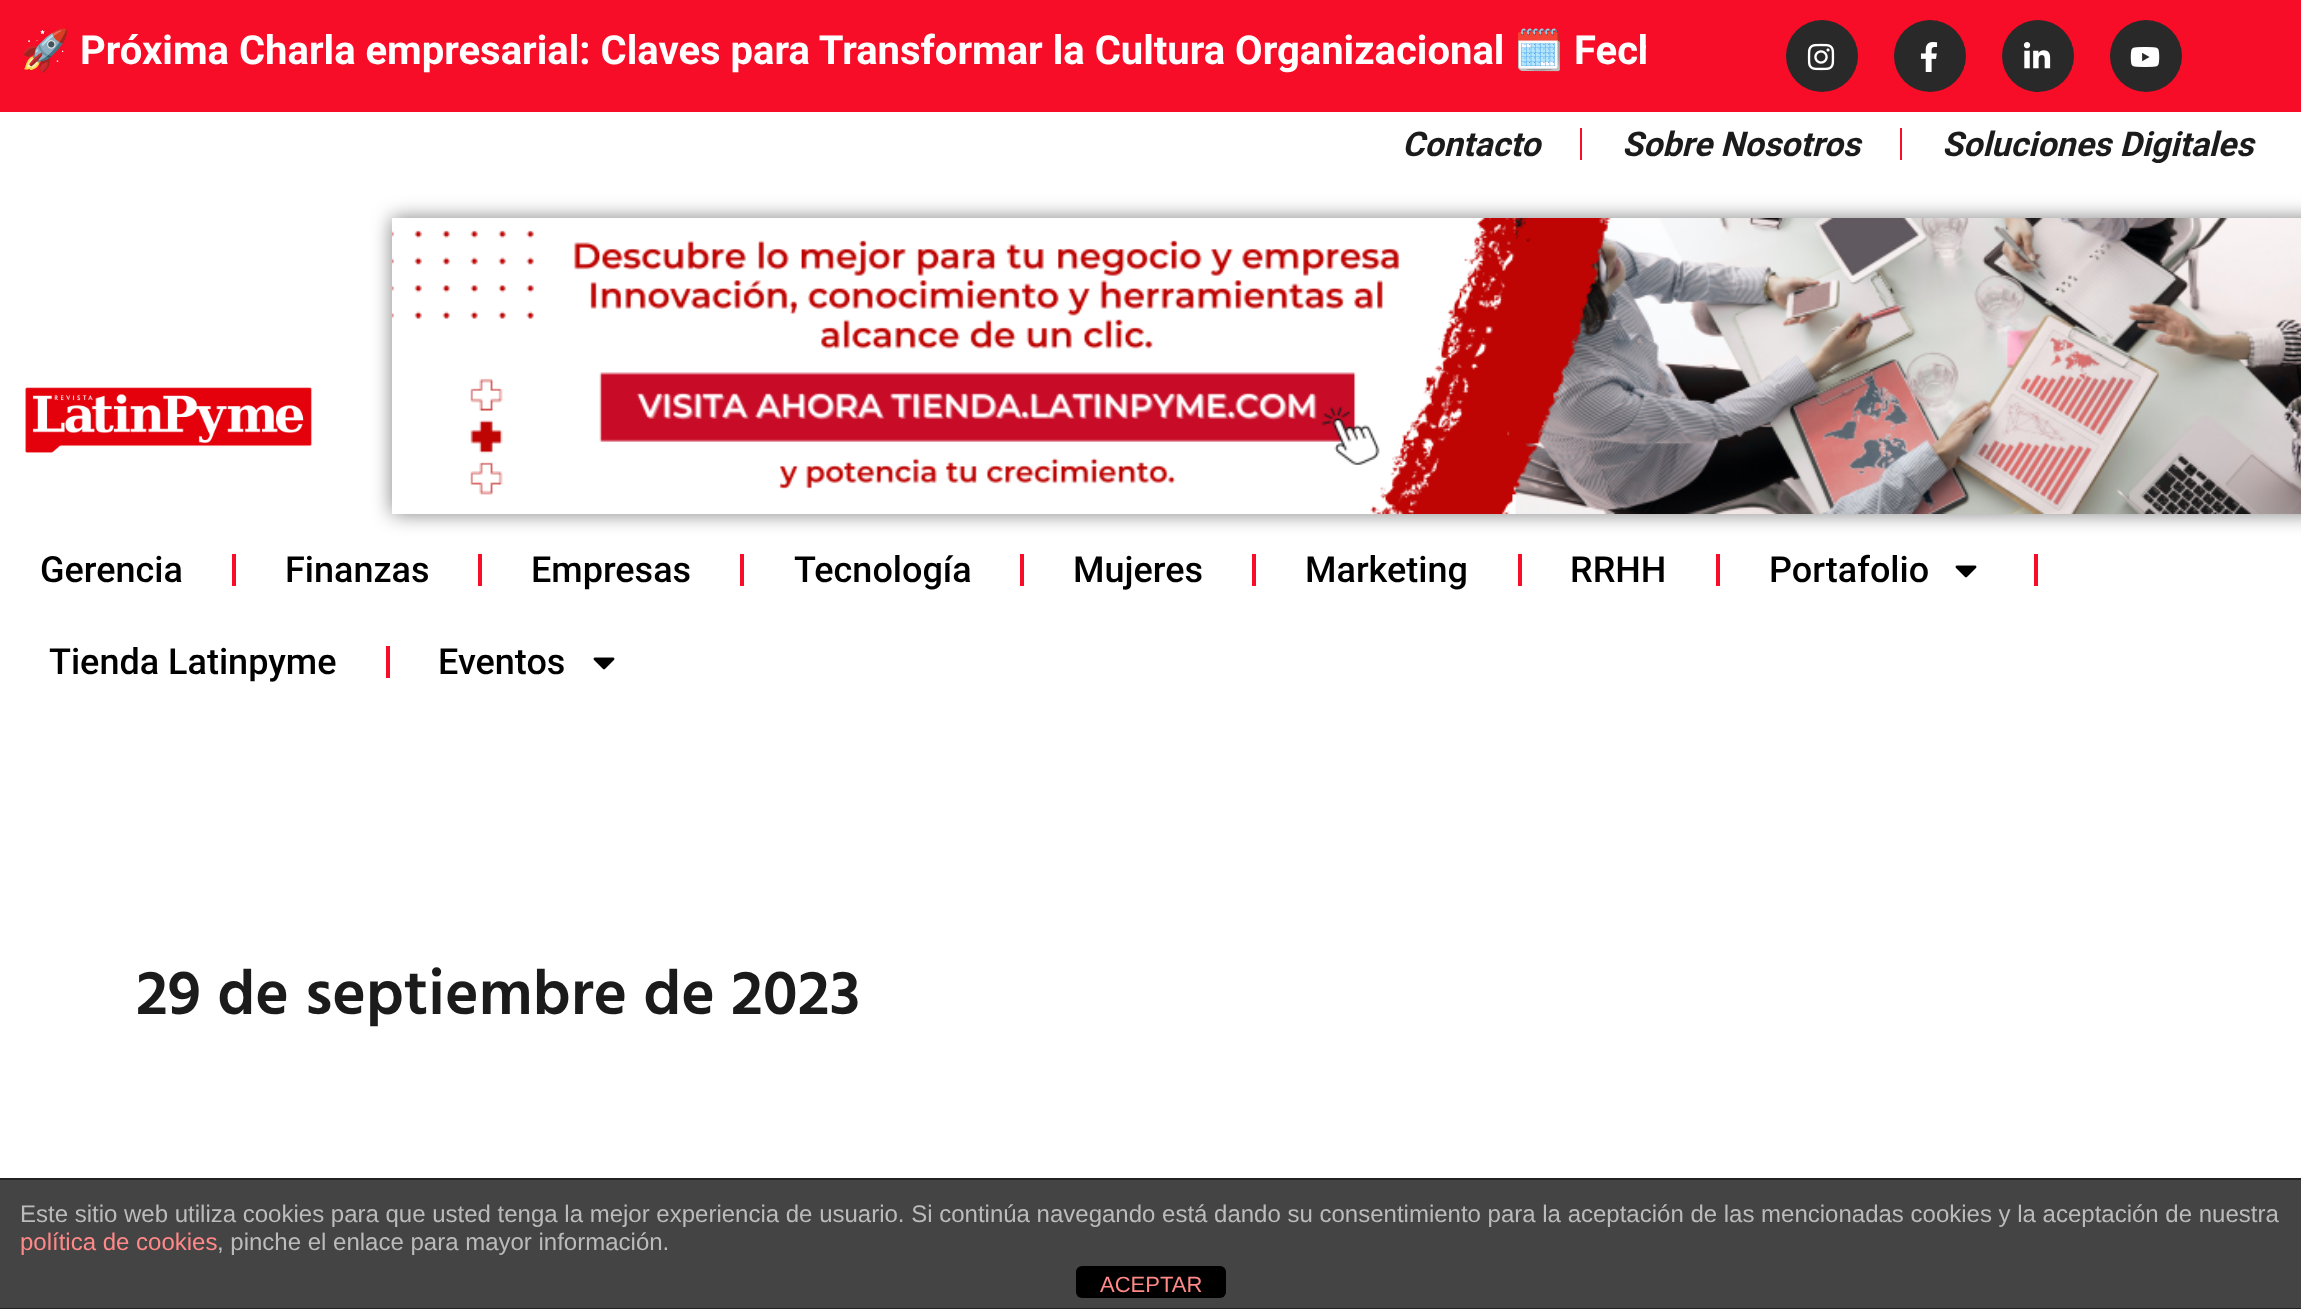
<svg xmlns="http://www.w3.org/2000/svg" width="2301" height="1309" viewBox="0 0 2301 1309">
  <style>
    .t1 { font: bold 40px Noto Color Emoji; fill: #fff; }
    .t2 { font: bold 40px Roboto; fill: #fff; }
    .t3 { font: italic bold 34px Roboto; fill: #1b1b1b; }
    .t4 { font: 500 36px Roboto; fill: #000; }
    .t5 { font: 600 64px Hind Vadodara; fill: #1b1b1b; }
    .t6 { font: 24px Liberation Sans; fill: #bbb; }
    .t7 { font: 24px Liberation Sans; fill: #f88; }
    .t8 { font: 22px Liberation Sans; fill: #f88; }
  </style>
  <defs>
    <clipPath id="clip1"><rect x="20" y="26" width="1626" height="60"/></clipPath>
  </defs>
  <rect width="100%" height="100%" fill="#fff"/>
  <rect x="0" y="0" width="2301" height="112" fill="#f70d28"/>
  <text x="20" y="64" class="t1">🚀</text>
  <text x="80" y="64" class="t2">Próxima Charla empresarial: Claves para Transformar la Cultura Organizacional</text>
  <text x="1514" y="64" class="t1">🗓️</text>
  <g clip-path="url(#clip1)">
    <text x="1574" y="64" class="t2">Fech</text>
  </g>
  <circle cx="1822" cy="56" r="36" fill="#292929"/>
  <image x="1807" y="43" width="28" height="28" href="images/1.png"/>
  <circle cx="1930" cy="56" r="36" fill="#292929"/>
  <image x="1920" y="42" width="18" height="30" href="images/2.png"/>
  <circle cx="2038" cy="56" r="36" fill="#292929"/>
  <image x="2023" y="42" width="28" height="27" href="images/3.png"/>
  <circle cx="2146" cy="56" r="36" fill="#292929"/>
  <image x="2130" y="47" width="30" height="20" href="images/4.png"/>
  <text x="1402" y="156" class="t3">Contacto</text>
  <rect x="1580" y="128" width="2" height="32" fill="#f70d28"/>
  <text x="1622" y="156" class="t3">Sobre Nosotros</text>
  <rect x="1900" y="128" width="2" height="32" fill="#f70d28"/>
  <text x="1942" y="156" class="t3">Soluciones Digitales</text>
  <rect x="392" y="218" width="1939" height="296" fill="#00000080" filter="blur(10px)"/>
  <image x="392" y="218" width="1909" height="296" href="images/5.png"/>
  <image x="25" y="387" width="287" height="66" href="images/6.png"/>
  <text x="40" y="582" class="t4">Gerencia</text>
  <rect x="232" y="554" width="4" height="32" fill="#f70d28"/>
  <text x="285" y="582" class="t4">Finanzas</text>
  <rect x="478" y="554" width="4" height="32" fill="#f70d28"/>
  <text x="531" y="582" class="t4">Empresas</text>
  <rect x="740" y="554" width="4" height="32" fill="#f70d28"/>
  <text x="794" y="582" class="t4">Tecnología</text>
  <rect x="1020" y="554" width="4" height="32" fill="#f70d28"/>
  <text x="1073" y="582" class="t4">Mujeres</text>
  <rect x="1252" y="554" width="4" height="32" fill="#f70d28"/>
  <text x="1305" y="582" class="t4">Marketing</text>
  <rect x="1518" y="554" width="4" height="32" fill="#f70d28"/>
  <text x="1570" y="582" class="t4">RRHH</text>
  <rect x="1716" y="554" width="4" height="32" fill="#f70d28"/>
  <text x="1769" y="582" class="t4">Portafolio</text>
  <image x="1955" y="565" width="22" height="13" href="images/7.png"/>
  <rect x="2034" y="554" width="4" height="32" fill="#f70d28"/>
  <text x="49" y="674" class="t4">Tienda Latinpyme</text>
  <rect x="386" y="646" width="4" height="32" fill="#f70d28"/>
  <text x="438" y="674" class="t4">Eventos</text>
  <image x="593" y="657" width="22" height="13" href="images/7.png"/>
  <text x="136" y="1014" class="t5">29 de septiembre de 2023</text>
  <rect x="0" y="1180" width="2301" height="128" fill="#444"/>
  <rect x="0" y="1178" width="2301" height="2" fill="#222"/>
  <rect x="0" y="1308" width="2301" height="1" fill="#222"/>
  <text x="20" y="1222" class="t6">Este sitio web utiliza cookies para que usted tenga la mejor experiencia de usuario. Si continúa navegando está dando su consentimiento para la aceptación de las mencionadas cookies y la aceptación de nuestra</text>
  <text x="20" y="1250" class="t7">política de cookies</text>
  <text x="217" y="1250" class="t6">, pinche el enlace para mayor información.</text>
  <rect x="1076" y="1266" width="150" height="32" rx="6" fill="#000"/>
  <text x="1100" y="1292" class="t8">ACEPTAR</text>
</svg>
